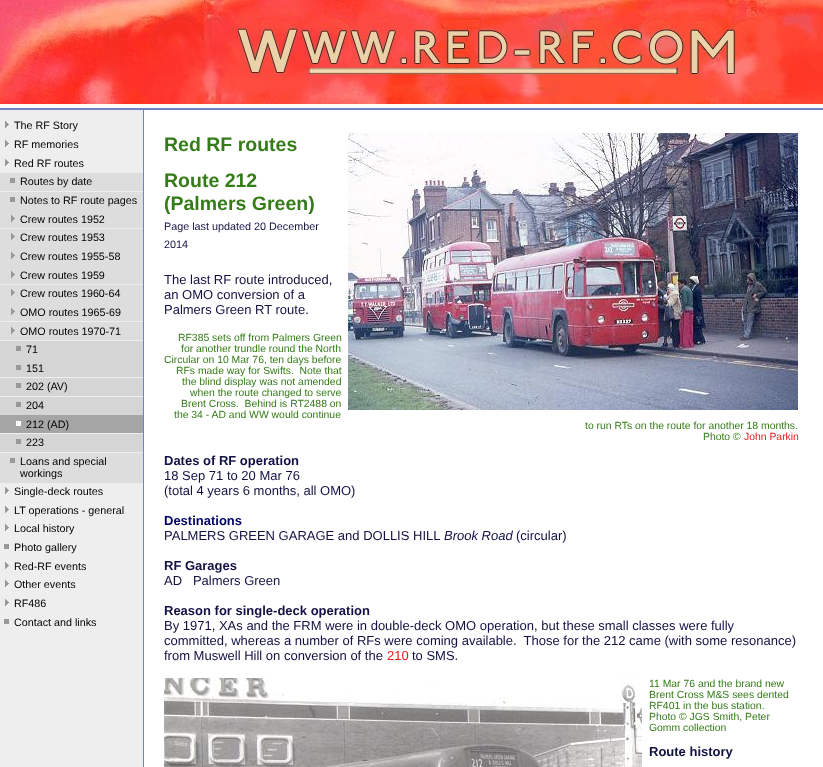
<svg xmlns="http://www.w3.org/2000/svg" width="823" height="767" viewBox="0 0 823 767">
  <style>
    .t1 { font: 10.75px Liberation Sans; fill: #000; }
    .t2 { font: bold 19.5px Liberation Sans; fill: #347c17; }
    .t3 { font: 10.8px Liberation Sans; fill: #114; }
    .t4 { font: 13px Liberation Sans; fill: #114; }
    .t5 { font: 10.4px Liberation Sans; fill: #347c17; }
    .t6 { font: 10.4px Liberation Sans; fill: #e41b17; }
    .t7 { font: bold 13px Liberation Sans; fill: #114; }
    .t8 { font: bold 13px Liberation Sans; fill: #006; }
    .t9 { font: italic 13px Liberation Sans; fill: #114; }
    .t10 { font: 13px Liberation Sans; fill: #e41b17; }
  </style>
  <rect width="100%" height="100%" fill="#fff"/>
  <image x="0" y="0" width="823" height="104" href="images/1.png"/>
  <rect x="0" y="108" width="823" height="2" fill="#7183c3"/>
  <rect x="0" y="110" width="143" height="657" fill="#eee"/>
  <rect x="143" y="110" width="1" height="657" fill="#7183c3"/>
  <image x="5" y="121" width="4" height="7" href="images/2.png"/>
  <text x="14" y="129" class="t1">The RF Story</text>
  <image x="5" y="140" width="4" height="7" href="images/2.png"/>
  <text x="14" y="148" class="t1">RF memories</text>
  <image x="5" y="159" width="4" height="7" href="images/2.png"/>
  <text x="14" y="167" class="t1">Red RF routes</text>
  <rect x="0" y="173" width="143" height="18" fill="#ddd"/>
  <rect x="10" y="178" width="5" height="5" fill="#999"/>
  <text x="20" y="185" class="t1">Routes by date</text>
  <rect x="0" y="192" width="143" height="36" fill="#ddd"/>
  <rect x="10" y="197" width="5" height="5" fill="#999"/>
  <text x="20" y="204" class="t1">Notes to RF route pages</text>
  <image x="11" y="215" width="4" height="7" href="images/3.png"/>
  <text x="20" y="223" class="t1">Crew routes 1952</text>
  <rect x="0" y="229" width="143" height="55" fill="#ddd"/>
  <image x="11" y="233" width="4" height="7" href="images/3.png"/>
  <text x="20" y="241" class="t1">Crew routes 1953</text>
  <image x="11" y="252" width="4" height="7" href="images/3.png"/>
  <text x="20" y="260" class="t1">Crew routes 1955-58</text>
  <image x="11" y="271" width="4" height="7" href="images/3.png"/>
  <text x="20" y="279" class="t1">Crew routes 1959</text>
  <rect x="0" y="285" width="143" height="36" fill="#ddd"/>
  <image x="11" y="289" width="4" height="7" href="images/3.png"/>
  <text x="20" y="297" class="t1">Crew routes 1960-64</text>
  <image x="11" y="308" width="4" height="7" href="images/3.png"/>
  <text x="20" y="316" class="t1">OMO routes 1965-69</text>
  <rect x="0" y="322" width="143" height="18" fill="#ddd"/>
  <image x="11" y="327" width="4" height="7" href="images/3.png"/>
  <text x="20" y="335" class="t1">OMO routes 1970-71</text>
  <rect x="0" y="341" width="143" height="36" fill="#d5d5d5"/>
  <rect x="16" y="346" width="5" height="5" fill="#999"/>
  <text x="26" y="353" class="t1">71</text>
  <rect x="16" y="365" width="5" height="5" fill="#999"/>
  <text x="26" y="372" class="t1">151</text>
  <rect x="0" y="378" width="143" height="18" fill="#d5d5d5"/>
  <rect x="16" y="383" width="5" height="5" fill="#999"/>
  <text x="26" y="390" class="t1">202 (AV)</text>
  <rect x="0" y="397" width="143" height="18" fill="#d5d5d5"/>
  <rect x="16" y="402" width="5" height="5" fill="#999"/>
  <text x="26" y="409" class="t1">204</text>
  <rect x="0" y="415" width="143" height="18" fill="#a5a5a5"/>
  <rect x="16" y="421" width="5" height="5" fill="#fff"/>
  <text x="26" y="428" class="t1">212 (AD)</text>
  <rect x="0" y="434" width="143" height="18" fill="#d5d5d5"/>
  <rect x="16" y="439" width="5" height="5" fill="#999"/>
  <text x="26" y="446" class="t1">223</text>
  <rect x="0" y="453" width="143" height="30" fill="#ddd"/>
  <rect x="10" y="458" width="5" height="5" fill="#999"/>
  <text x="20" y="465" class="t1">Loans and special</text>
  <text x="20" y="477" class="t1">workings</text>
  <image x="5" y="487" width="4" height="7" href="images/2.png"/>
  <text x="14" y="495" class="t1">Single-deck routes</text>
  <image x="5" y="506" width="4" height="7" href="images/2.png"/>
  <text x="14" y="514" class="t1">LT operations - general</text>
  <image x="5" y="524" width="4" height="7" href="images/2.png"/>
  <text x="14" y="532" class="t1">Local history</text>
  <rect x="4" y="544" width="5" height="5" fill="#999"/>
  <text x="14" y="551" class="t1">Photo gallery</text>
  <image x="5" y="562" width="4" height="7" href="images/2.png"/>
  <text x="14" y="570" class="t1">Red-RF events</text>
  <image x="5" y="580" width="4" height="7" href="images/2.png"/>
  <text x="14" y="588" class="t1">Other events</text>
  <image x="5" y="599" width="4" height="7" href="images/2.png"/>
  <text x="14" y="607" class="t1">RF486</text>
  <rect x="4" y="619" width="5" height="5" fill="#999"/>
  <text x="14" y="626" class="t1">Contact and links</text>
  <text x="164" y="151" class="t2">Red RF routes</text>
  <image x="348" y="133" width="450" height="277" href="images/4.png"/>
  <text x="164" y="187" class="t2">Route 212</text>
  <text x="164" y="210" class="t2">(Palmers Green)</text>
  <text x="164" y="230" class="t3">Page last updated 20 December</text>
  <text x="164" y="248" class="t3">2014</text>
  <text x="164" y="284" class="t4">The last RF route introduced,</text>
  <text x="164" y="299" class="t4">an OMO conversion of a</text>
  <text x="164" y="314" class="t4">Palmers Green RT route.</text>
  <text x="178" y="341" class="t5">RF385 sets off from Palmers Green</text>
  <text x="181" y="352" class="t5">for another trundle round the North</text>
  <text x="164" y="363" class="t5">Circular on 10 Mar 76, ten days before</text>
  <text x="176" y="374" class="t5" xml:space="preserve">RFs made way for Swifts.  Note that</text>
  <text x="182" y="385" class="t5">the blind display was not amended</text>
  <text x="190" y="396" class="t5">when the route changed to serve</text>
  <text x="181" y="407" class="t5" xml:space="preserve">Brent Cross.  Behind is RT2488 on</text>
  <text x="174" y="418" class="t5">the 34 - AD and WW would continue</text>
  <text x="585" y="429" class="t5">to run RTs on the route for another 18 months.</text>
  <text x="703" y="440" class="t5">Photo ©</text>
  <text x="744" y="440" class="t6">John Parkin</text>
  <text x="164" y="465" class="t7">Dates of RF operation</text>
  <text x="164" y="480" class="t4">18 Sep 71 to 20 Mar 76</text>
  <text x="164" y="495" class="t4">(total 4 years 6 months, all OMO)</text>
  <text x="164" y="525" class="t8">Destinations</text>
  <text x="164" y="540" class="t4">PALMERS GREEN GARAGE and DOLLIS HILL</text>
  <text x="444" y="540" class="t9">Brook Road</text>
  <text x="516" y="540" class="t4">(circular)</text>
  <text x="164" y="570" class="t7">RF Garages</text>
  <text x="164" y="585" class="t4" xml:space="preserve">AD   Palmers Green</text>
  <text x="164" y="615" class="t7">Reason for single-deck operation</text>
  <text x="164" y="630" class="t4">By 1971, XAs and the FRM were in double-deck OMO operation, but these small classes were fully</text>
  <text x="164" y="645" class="t4" xml:space="preserve">committed, whereas a number of RFs were coming available.  Those for the 212 came (with some resonance)</text>
  <text x="164" y="660" class="t4">from Muswell Hill on conversion of the</text>
  <text x="387" y="660" class="t10">210</text>
  <text x="412" y="660" class="t4">to SMS.</text>
  <image x="164" y="678" width="478" height="89" href="images/5.png"/>
  <text x="649" y="687" class="t5">11 Mar 76 and the brand new</text>
  <text x="649" y="698" class="t5">Brent Cross M&amp;S sees dented</text>
  <text x="649" y="709" class="t5">RF401 in the bus station.</text>
  <text x="649" y="720" class="t5">Photo © JGS Smith, Peter</text>
  <text x="649" y="731" class="t5">Gomm collection</text>
  <text x="649" y="756" class="t7">Route history</text>
</svg>
